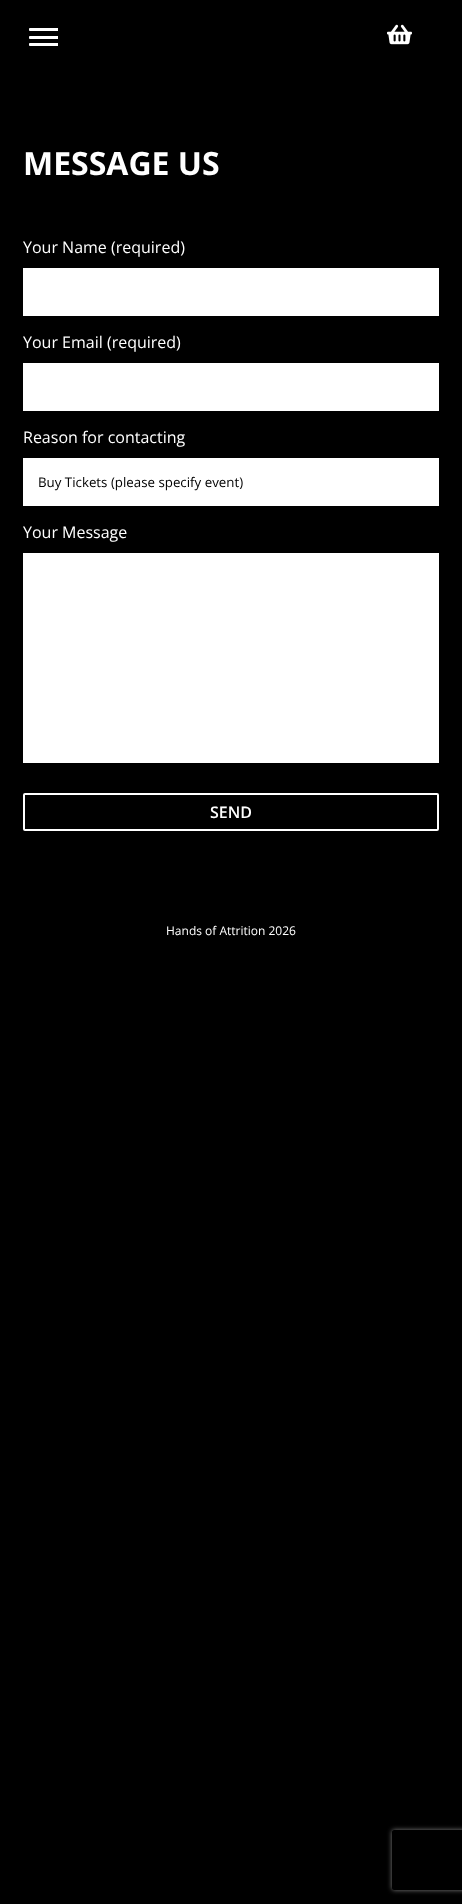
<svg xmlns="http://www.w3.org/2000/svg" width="462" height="1904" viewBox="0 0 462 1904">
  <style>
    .t1 { font: bold 32px Open Sans; fill: #fff; }
    .t2 { font: 16px Open Sans; fill: #fff; }
    .t3 { font: 13.3px Open Sans; fill: #000; }
    .t4 { font: 600 16px Open Sans; fill: #fff; }
    .t5 { font: 12px Open Sans; fill: #fff; }
  </style>
  <defs>
    <clipPath id="clip1"><path d="M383 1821H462V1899H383ZM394 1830H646C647 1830 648 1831 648 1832V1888C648 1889 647 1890 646 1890H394C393 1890 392 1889 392 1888V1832C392 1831 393 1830 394 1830Z" clip-rule="evenodd"/></clipPath>
  </defs>
  <rect width="100%" height="100%" fill="#000"/>
  <path d="M30 28H58V31H30C29.5 31 29 30.5 29 30V29C29 28.5 29.5 28 30 28Z" fill="#fff"/>
  <path d="M30 36H58V39H30C29.5 39 29 38.5 29 38V37C29 36.5 29.5 36 30 36Z" fill="#fff"/>
  <path d="M30 43H58V46H30C29.5 46 29 45.5 29 45V44C29 43.5 29.5 43 30 43Z" fill="#fff"/>
  <image x="387" y="24" width="25" height="21" href="images/1.png"/>
  <text x="23" y="175" class="t1">MESSAGE US</text>
  <text x="23" y="253" class="t2">Your Name (required)</text>
  <rect x="23" y="268" width="416" height="48" fill="#fff"/>
  <text x="23" y="348" class="t2">Your Email (required)</text>
  <rect x="23" y="363" width="416" height="48" fill="#fff"/>
  <text x="23" y="443" class="t2">Reason for contacting</text>
  <rect x="23" y="458" width="416" height="48" fill="#fff"/>
  <text x="38" y="487" class="t3">Buy Tickets (please specify event)</text>
  <text x="23" y="538" class="t2">Your Message</text>
  <rect x="23" y="553" width="416" height="210" fill="#fff"/>
  <rect x="24" y="794" width="414" height="36" rx="1" fill="none" stroke="#fff" stroke-width="2"/>
  <text x="210" y="818" class="t4">SEND</text>
  <text x="166" y="935" class="t5">Hands of Attrition 2026</text>
  <g clip-path="url(#clip1)">
    <rect x="392" y="1830" width="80" height="60" rx="2" fill="#808080" filter="blur(2.5px)"/>
  </g>
</svg>
